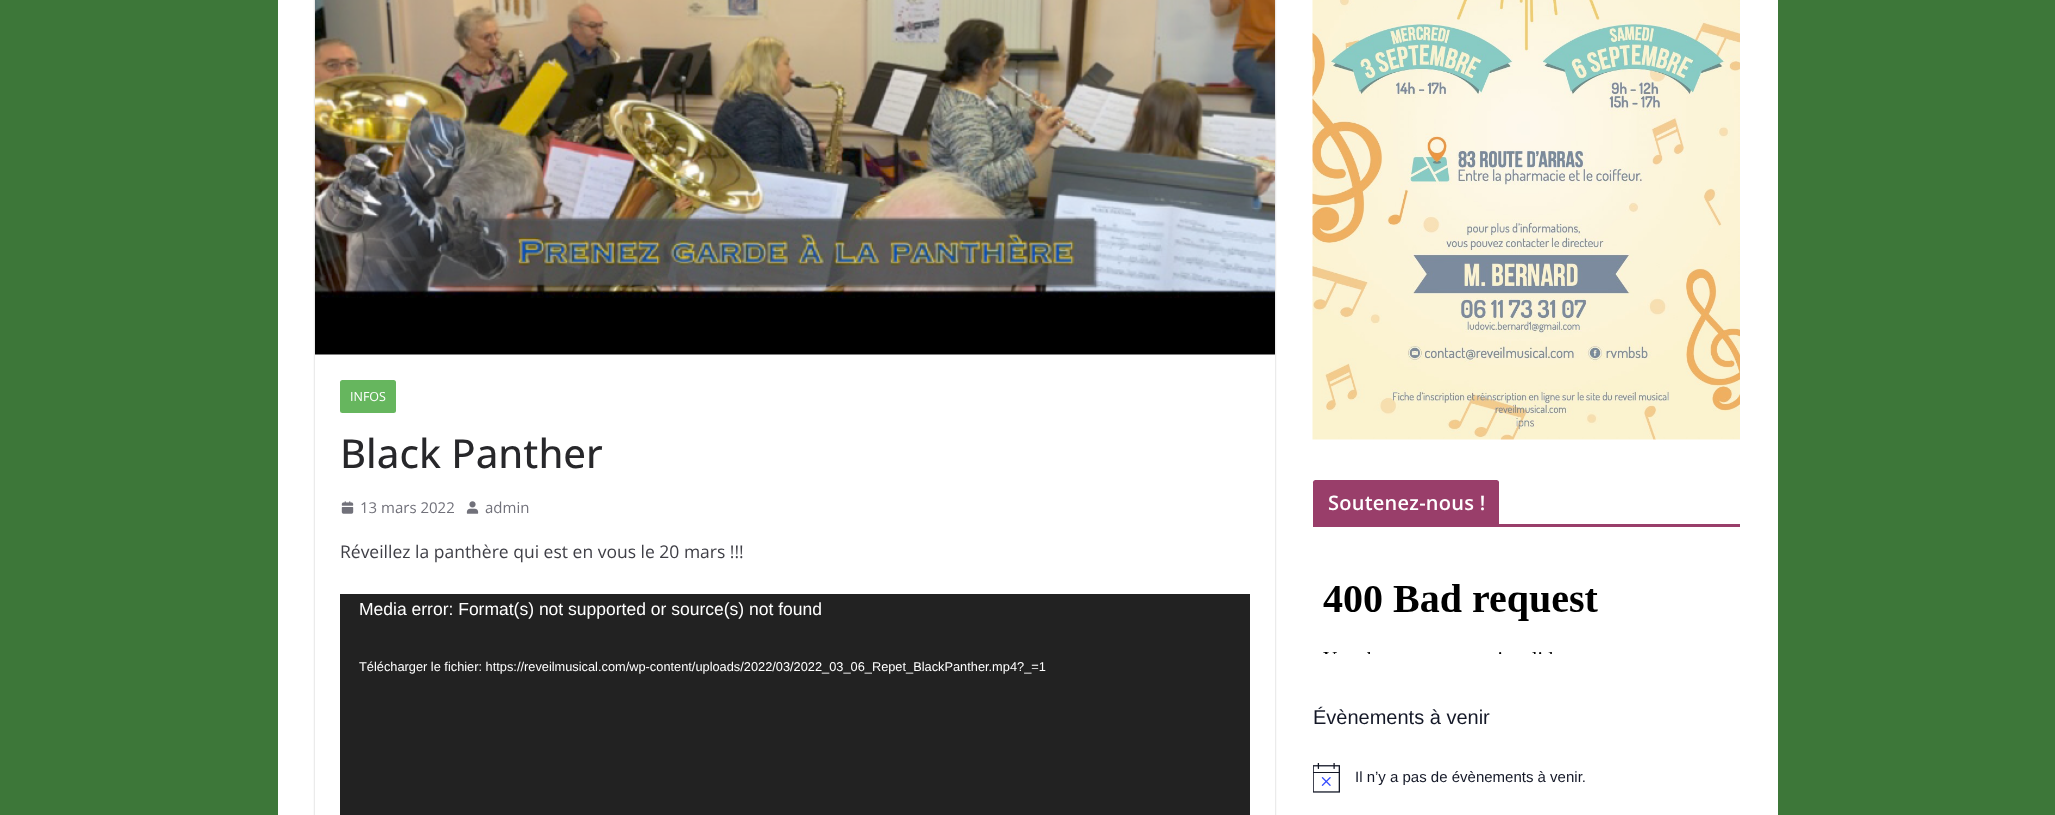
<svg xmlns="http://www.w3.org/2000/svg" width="2055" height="815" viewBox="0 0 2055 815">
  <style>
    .t1 { font: 12.5px Open Sans; fill: #fff; }
    .t2 { font: 500 40px Open Sans; fill: #27272a; }
    .t3 { font: 15px Open Sans; fill: #71717a; }
    .t4 { font: 17.5px Open Sans; fill: #3f3f46; }
    .t5 { font: 17.5px Liberation Sans; fill: #fff; }
    .t6 { font: 12.8px Liberation Sans; fill: #fff; }
    .t7 { font: 600 20px Open Sans; letter-spacing: 0.25px; fill: #fff; }
    .t8 { font: 20px Liberation Sans; fill: #141827; }
    .t9 { font: 15px Liberation Sans; fill: #141827; }
  </style>
  <defs>
    <clipPath id="clip1"><path d="M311 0H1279V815H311ZM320-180H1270C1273-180 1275-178 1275-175V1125C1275 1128 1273 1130 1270 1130H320C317 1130 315 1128 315 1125V-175C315-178 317-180 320-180Z" clip-rule="evenodd"/></clipPath>
  </defs>
  <rect width="100%" height="100%" fill="#3d7739"/>
  <rect x="278" y="0" width="1500" height="815" fill="#fff"/>
  <g clip-path="url(#clip1)">
    <rect x="315" y="-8" width="960" height="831" rx="5" fill="#0000003d" filter="blur(1px)"/>
  </g>
  <image x="315" y="0" width="960" height="355" href="images/1.png"/>
  <rect x="340" y="380" width="56" height="33" rx="2.5" fill="#66b65e"/>
  <text x="350" y="401" class="t1">INFOS</text>
  <text x="340" y="468" class="t2">Black Panther</text>
  <image x="341" y="501" width="13" height="13" href="images/2.png"/>
  <text x="360" y="513" class="t3">13 mars 2022</text>
  <image x="466" y="501" width="13" height="13" href="images/3.png"/>
  <text x="485" y="513" class="t3">admin</text>
  <text x="340" y="558" class="t4">Réveillez la panthère qui est en vous le 20 mars !!!</text>
  <rect x="340" y="594" width="910" height="221" fill="#222"/>
  <text x="359" y="615" class="t5">Media error: Format(s) not supported or source(s) not found</text>
  <text x="359" y="671" class="t6">Télécharger le fichier: https://reveilmusical.com/wp-content/uploads/2022/03/2022_03_06_Repet_BlackPanther.mp4?_=1</text>
  <image x="1312" y="0" width="428" height="440" href="images/4.png"/>
  <rect x="1313" y="524" width="427" height="3" fill="#993e6a"/>
  <path d="M1315.5 480H1496.5C1498 480 1499 481 1499 482.5V524H1313V482.5C1313 481 1314 480 1315.5 480Z" fill="#993e6a"/>
  <text x="1328" y="510" class="t7">Soutenez-nous !</text>
  <image x="1323" y="584" width="275" height="70" href="images/5.png"/>
  <text x="1313" y="724" class="t8">Évènements à venir</text>
  <image x="1313" y="763" width="27" height="30" href="images/6.png"/>
  <text x="1355" y="782" class="t9">Il n’y a pas de évènements à venir.</text>
</svg>
